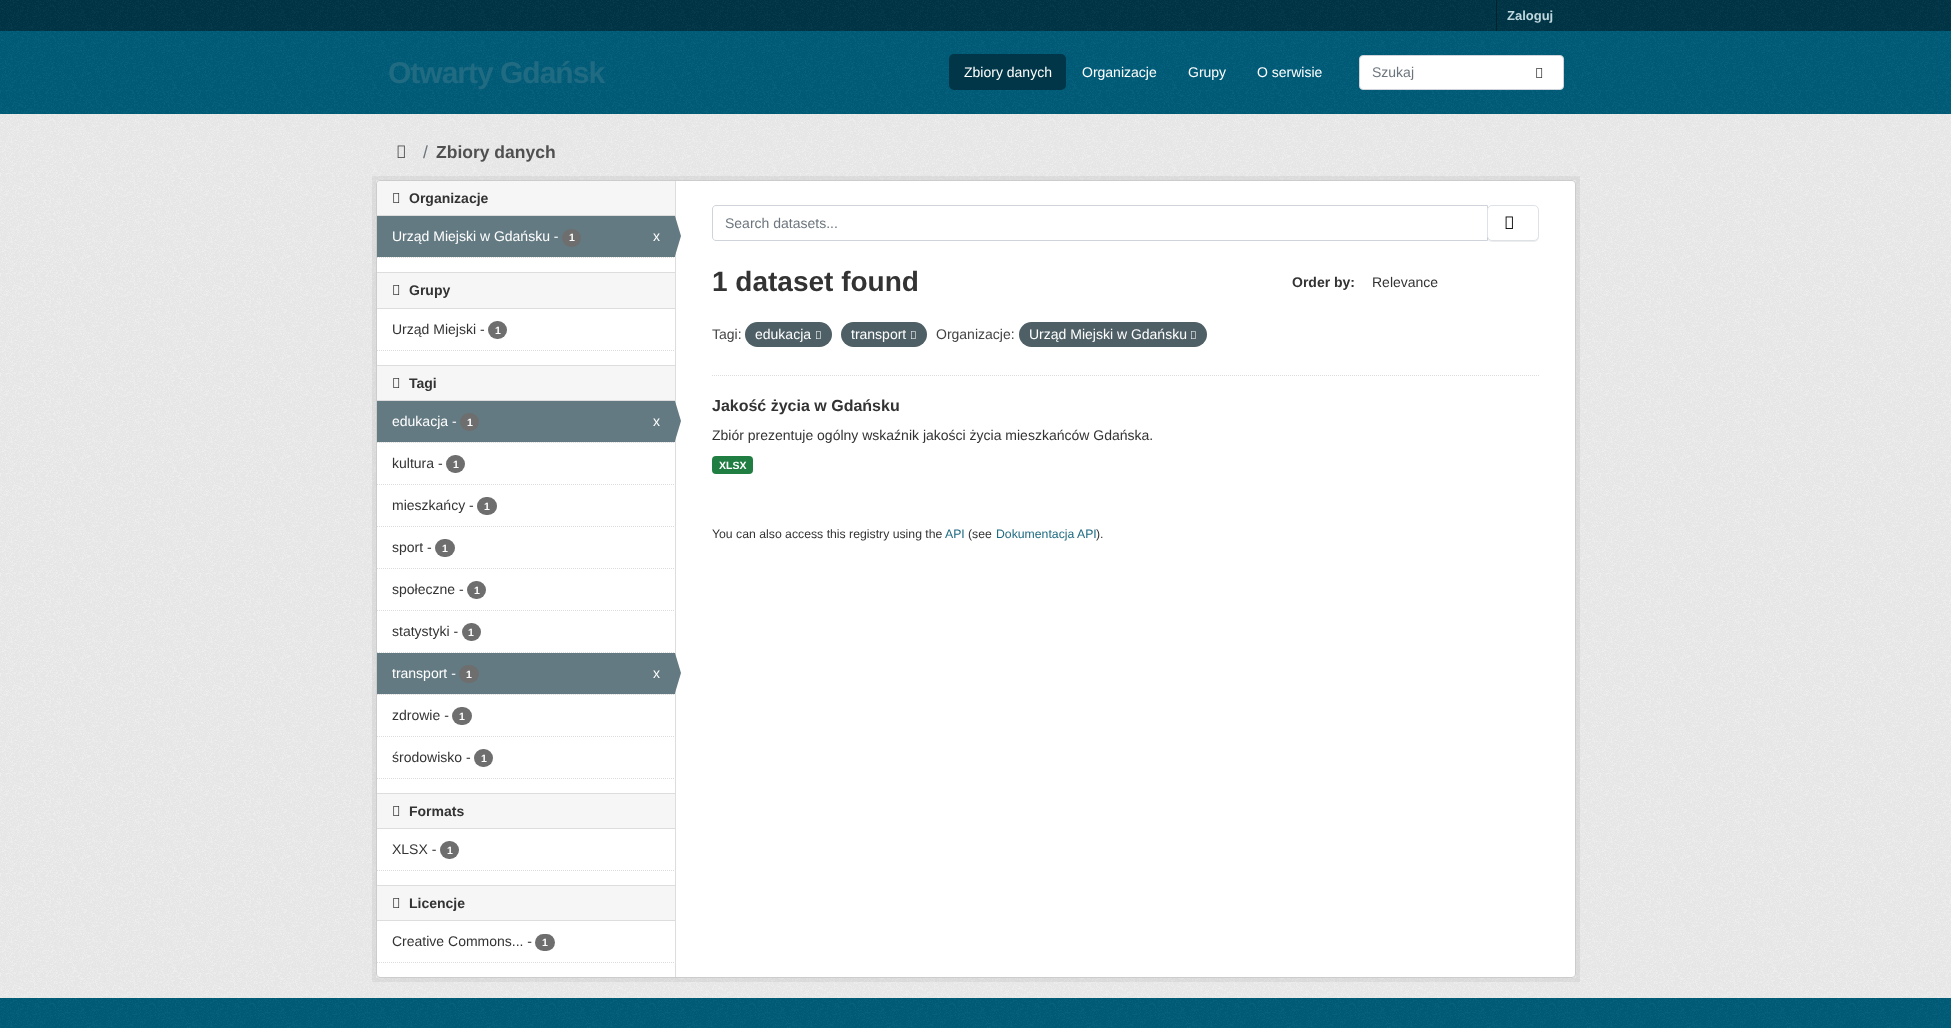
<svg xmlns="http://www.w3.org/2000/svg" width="1951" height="1028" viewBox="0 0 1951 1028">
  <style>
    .t1 { font: bold 13px Liberation Sans; fill: #bfd7de; }
    .t2 { font: bold 30px Liberation Sans; letter-spacing: -1px; fill: #206b82; }
    .t3 { font: 14px Liberation Sans; fill: #fff; }
    .t4 { font: 14px Liberation Sans; fill: #6c757d; }
    .t5 { font: 17.5px Liberation Sans; fill: #6c757d; }
    .t6 { font: bold 17.5px Liberation Sans; fill: #505050; }
    .t7 { font: bold 14px Liberation Sans; fill: #333; }
    .t8 { font: bold 10.5px Liberation Sans; fill: #fff; }
    .t9 { font: 14px Liberation Sans; fill: #333; }
    .t10 { font: bold 28px Liberation Sans; fill: #333; }
    .t11 { font: 14px Liberation Sans; fill: #444; }
    .t12 { font: bold 16px Liberation Sans; fill: #333; }
    .t13 { font: 12.25px Liberation Sans; fill: #333; }
    .t14 { font: 12.25px Liberation Sans; fill: #206b82; }
  </style>
  <rect width="100%" height="100%" fill="#003647"/>
  <image x="0" y="0" width="1951" height="31" href="images/1.png"/>
  <rect x="1496" y="0" width="1" height="31" fill="#00232e"/>
  <text x="1507" y="20" class="t1">Zaloguj</text>
  <rect x="0" y="31" width="1951" height="83" fill="#005d7a"/>
  <image x="0" y="31" width="1951" height="83" href="images/2.png"/>
  <text x="388" y="83" class="t2">Otwarty Gdańsk</text>
  <rect x="949" y="54" width="117" height="36" rx="5" fill="#003647"/>
  <text x="964" y="77" class="t3">Zbiory danych</text>
  <text x="1082" y="77" class="t3">Organizacje</text>
  <text x="1188" y="77" class="t3">Grupy</text>
  <text x="1257" y="77" class="t3">O serwisie</text>
  <rect x="1359.5" y="55.5" width="204" height="34" rx="3.5" fill="#fff" stroke="#ced4da"/>
  <text x="1372" y="77" class="t4">Szukaj</text>
  <image x="1536" y="68" width="7" height="10" href="images/3.png"/>
  <rect x="0" y="114" width="1951" height="884" fill="#eee"/>
  <image x="0" y="114" width="1951" height="884" href="images/4.png"/>
  <image x="397" y="145" width="8" height="13" href="images/5.png"/>
  <text x="423" y="158" class="t5">/</text>
  <text x="436" y="158" class="t6">Zbiory danych</text>
  <rect x="374" y="178" width="1204" height="802" fill="none" stroke="#0000000d" stroke-width="4"/>
  <rect x="376.5" y="180.5" width="1199" height="797" rx="3.5" fill="#fff" stroke="#ccc"/>
  <path d="M380 181H675V216H377V184C377 182.5 378.5 181 380 181Z" fill="#f6f6f6"/>
  <rect x="377" y="215" width="298" height="1" fill="#ddd"/>
  <image x="393" y="193" width="7" height="10" href="images/6.png"/>
  <text x="409" y="203" class="t7">Organizacje</text>
  <rect x="377" y="216" width="298" height="41" fill="#647a82"/>
  <text x="392" y="241" class="t3">Urząd Miejski w Gdańsku -</text>
  <rect x="562" y="229" width="19" height="18" rx="9" fill="#6e6e6e"/>
  <text x="569" y="241" class="t8">1</text>
  <text x="653" y="241" class="t3">x</text>
  <rect x="675" y="181" width="1" height="796" fill="#ddd"/>
  <path d="M675 256V216L681 236Z" fill="#647a82"/>
  <path d="M377 257.5H675" fill="none" stroke="#ddd" stroke-dasharray="1 1"/>
  <rect x="377" y="273" width="298" height="35" fill="#f6f6f6"/>
  <rect x="377" y="272" width="298" height="1" fill="#ddd"/>
  <rect x="377" y="308" width="298" height="1" fill="#ddd"/>
  <image x="393" y="285" width="7" height="10" href="images/6.png"/>
  <text x="409" y="295" class="t7">Grupy</text>
  <text x="392" y="334" class="t9">Urząd Miejski -</text>
  <rect x="488" y="321" width="19" height="18" rx="9" fill="#6e6e6e"/>
  <text x="495" y="334" class="t8">1</text>
  <path d="M377 350.5H675" fill="none" stroke="#ddd" stroke-dasharray="1 1"/>
  <rect x="377" y="366" width="298" height="34" fill="#f6f6f6"/>
  <rect x="377" y="365" width="298" height="1" fill="#ddd"/>
  <rect x="377" y="400" width="298" height="1" fill="#ddd"/>
  <image x="393" y="378" width="7" height="10" href="images/6.png"/>
  <text x="409" y="388" class="t7">Tagi</text>
  <rect x="378" y="442" width="297" height="1" fill="#f6f6f6"/>
  <path d="M377 442.5H675" fill="none" stroke="#ddd" stroke-dasharray="1 1"/>
  <rect x="377" y="401" width="298" height="41" fill="#647a82"/>
  <text x="392" y="426" class="t3">edukacja -</text>
  <rect x="460" y="413" width="19" height="18" rx="9" fill="#6e6e6e"/>
  <text x="467" y="426" class="t8">1</text>
  <text x="653" y="426" class="t3">x</text>
  <path d="M675 441V401L681 421Z" fill="#647a82"/>
  <path d="M377 484.5H675" fill="none" stroke="#ddd" stroke-dasharray="1 1"/>
  <text x="392" y="468" class="t9">kultura -</text>
  <rect x="446" y="455" width="19" height="18" rx="9" fill="#6e6e6e"/>
  <text x="453" y="468" class="t8">1</text>
  <path d="M377 526.5H675" fill="none" stroke="#ddd" stroke-dasharray="1 1"/>
  <text x="392" y="510" class="t9">mieszkańcy -</text>
  <rect x="477" y="497" width="20" height="18" rx="9" fill="#6e6e6e"/>
  <text x="484" y="510" class="t8">1</text>
  <path d="M377 568.5H675" fill="none" stroke="#ddd" stroke-dasharray="1 1"/>
  <text x="392" y="552" class="t9">sport -</text>
  <rect x="435" y="539" width="20" height="18" rx="9" fill="#6e6e6e"/>
  <text x="442" y="552" class="t8">1</text>
  <path d="M377 610.5H675" fill="none" stroke="#ddd" stroke-dasharray="1 1"/>
  <text x="392" y="594" class="t9">społeczne -</text>
  <rect x="467" y="581" width="19" height="18" rx="9" fill="#6e6e6e"/>
  <text x="474" y="594" class="t8">1</text>
  <path d="M377 652.5H675" fill="none" stroke="#ddd" stroke-dasharray="1 1"/>
  <text x="392" y="636" class="t9">statystyki -</text>
  <rect x="462" y="623" width="19" height="18" rx="9" fill="#6e6e6e"/>
  <text x="468" y="636" class="t8">1</text>
  <rect x="378" y="694" width="297" height="1" fill="#f6f6f6"/>
  <path d="M377 694.5H675" fill="none" stroke="#ddd" stroke-dasharray="1 1"/>
  <rect x="377" y="653" width="298" height="41" fill="#647a82"/>
  <text x="392" y="678" class="t3">transport -</text>
  <rect x="459" y="665" width="20" height="18" rx="9" fill="#6e6e6e"/>
  <text x="466" y="678" class="t8">1</text>
  <text x="653" y="678" class="t3">x</text>
  <path d="M675 693V653L681 673Z" fill="#647a82"/>
  <path d="M377 736.5H675" fill="none" stroke="#ddd" stroke-dasharray="1 1"/>
  <text x="392" y="720" class="t9">zdrowie -</text>
  <rect x="452" y="707" width="20" height="18" rx="9" fill="#6e6e6e"/>
  <text x="459" y="720" class="t8">1</text>
  <text x="392" y="762" class="t9">środowisko -</text>
  <rect x="474" y="749" width="19" height="18" rx="9" fill="#6e6e6e"/>
  <text x="481" y="762" class="t8">1</text>
  <path d="M377 778.5H675" fill="none" stroke="#ddd" stroke-dasharray="1 1"/>
  <rect x="377" y="794" width="298" height="34" fill="#f6f6f6"/>
  <rect x="377" y="793" width="298" height="1" fill="#ddd"/>
  <rect x="377" y="828" width="298" height="1" fill="#ddd"/>
  <image x="393" y="806" width="7" height="10" href="images/6.png"/>
  <text x="409" y="816" class="t7">Formats</text>
  <text x="392" y="854" class="t9">XLSX -</text>
  <rect x="440" y="841" width="19" height="18" rx="9" fill="#6e6e6e"/>
  <text x="447" y="854" class="t8">1</text>
  <path d="M377 870.5H675" fill="none" stroke="#ddd" stroke-dasharray="1 1"/>
  <rect x="377" y="886" width="298" height="34" fill="#f6f6f6"/>
  <rect x="377" y="885" width="298" height="1" fill="#ddd"/>
  <rect x="377" y="920" width="298" height="1" fill="#ddd"/>
  <image x="393" y="898" width="7" height="10" href="images/6.png"/>
  <text x="409" y="908" class="t7">Licencje</text>
  <text x="392" y="946" class="t9">Creative Commons... -</text>
  <rect x="535" y="934" width="20" height="17" rx="8.5" fill="#6e6e6e"/>
  <text x="542" y="946" class="t8">1</text>
  <path d="M377 962.5H675" fill="none" stroke="#ddd" stroke-dasharray="1 1"/>
  <path d="M712 375.5H1539" fill="none" stroke="#ddd" stroke-dasharray="1 1"/>
  <path d="M716 205.5H1487.5V240.5H716C714 240.5 712.5 239 712.5 237V209C712.5 207 714 205.5 716 205.5Z" fill="none" stroke="#ced4da"/>
  <text x="725" y="228" class="t4">Search datasets...</text>
  <rect x="1487" y="206" width="52" height="36" rx="5" fill="#00000012" filter="blur(0.5px)"/>
  <rect x="1487.5" y="205.5" width="51" height="35" rx="4.5" fill="#fff" stroke="#dee2e6"/>
  <image x="1505" y="216" width="8" height="13" href="images/7.png"/>
  <text x="712" y="291" class="t10">1 dataset found</text>
  <text x="1292" y="287" class="t7">Order by:</text>
  <text x="1372" y="287" class="t9">Relevance</text>
  <text x="712" y="339" class="t11">Tagi:</text>
  <rect x="745" y="322" width="87" height="25" rx="12.5" fill="#4e5f65"/>
  <text x="755" y="339" class="t3">edukacja</text>
  <image x="816" y="331" width="5" height="8" href="images/8.png"/>
  <rect x="841" y="322" width="86" height="25" rx="12.5" fill="#4e5f65"/>
  <text x="851" y="339" class="t3">transport</text>
  <image x="911" y="331" width="5" height="8" href="images/8.png"/>
  <text x="936" y="339" class="t11">Organizacje:</text>
  <rect x="1019" y="322" width="188" height="25" rx="12.5" fill="#4e5f65"/>
  <text x="1029" y="339" class="t3">Urząd Miejski w Gdańsku</text>
  <image x="1191" y="331" width="5" height="8" href="images/8.png"/>
  <text x="712" y="411" class="t12">Jakość życia w Gdańsku</text>
  <text x="712" y="440" class="t9">Zbiór prezentuje ogólny wskaźnik jakości życia mieszkańców Gdańska.</text>
  <rect x="712" y="456" width="41" height="18" rx="4" fill="#207e42"/>
  <text x="719" y="469" class="t8">XLSX</text>
  <text x="712" y="538" class="t13">You can also access this registry using the</text>
  <text x="945" y="538" class="t14">API</text>
  <text x="968" y="538" class="t13">(see</text>
  <text x="996" y="538" class="t14">Dokumentacja API</text>
  <text x="1096" y="538" class="t13">).</text>
  <rect x="0" y="998" width="1951" height="30" fill="#005d7a"/>
  <image x="0" y="998" width="1951" height="30" href="images/9.png"/>
</svg>
